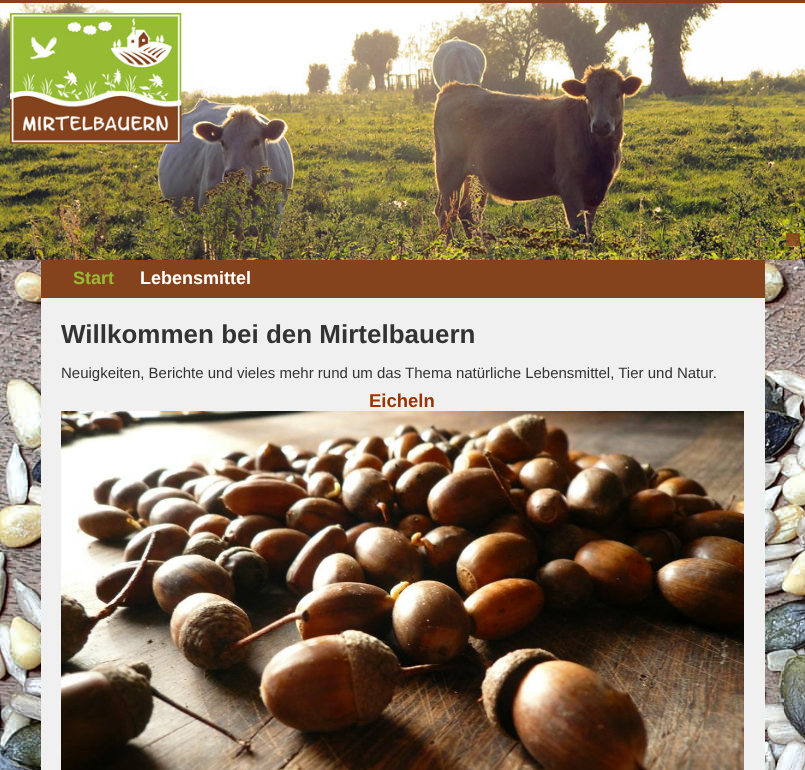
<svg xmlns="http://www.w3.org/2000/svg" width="805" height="770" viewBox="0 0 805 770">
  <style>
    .t1 { font: bold 18px Liberation Sans; fill: #96bc33; }
    .t2 { font: bold 18px Liberation Sans; fill: #fff; }
    .t3 { font: bold 26px Liberation Sans; fill: #333; }
    .t4 { font: 15px Liberation Sans; fill: #333; }
    .t5 { font: bold 18.5px Liberation Sans; fill: #930; }
  </style>
  <rect width="100%" height="100%" fill="#fff"/>
  <image x="0" y="259" width="805" height="511" href="images/1.png"/>
  <rect x="0" y="0" width="805" height="3" fill="#84431d"/>
  <image x="0" y="3" width="805" height="257" href="images/2.png"/>
  <rect x="786" y="233" width="14" height="13" fill="#84431dcc"/>
  <image x="10" y="13" width="172" height="131" href="images/3.png"/>
  <rect x="41" y="298" width="724" height="472" fill="#f0f0f0"/>
  <rect x="41" y="260" width="724" height="38" fill="#84431d"/>
  <text x="73" y="284" class="t1">Start</text>
  <text x="140" y="284" class="t2">Lebensmittel</text>
  <text x="61" y="343" class="t3">Willkommen bei den Mirtelbauern</text>
  <text x="61" y="378" class="t4">Neuigkeiten, Berichte und vieles mehr rund um das Thema natürliche Lebensmittel, Tier und Natur.</text>
  <text x="369" y="407" class="t5">Eicheln</text>
  <image x="61" y="411" width="683" height="359" href="images/4.png"/>
</svg>
